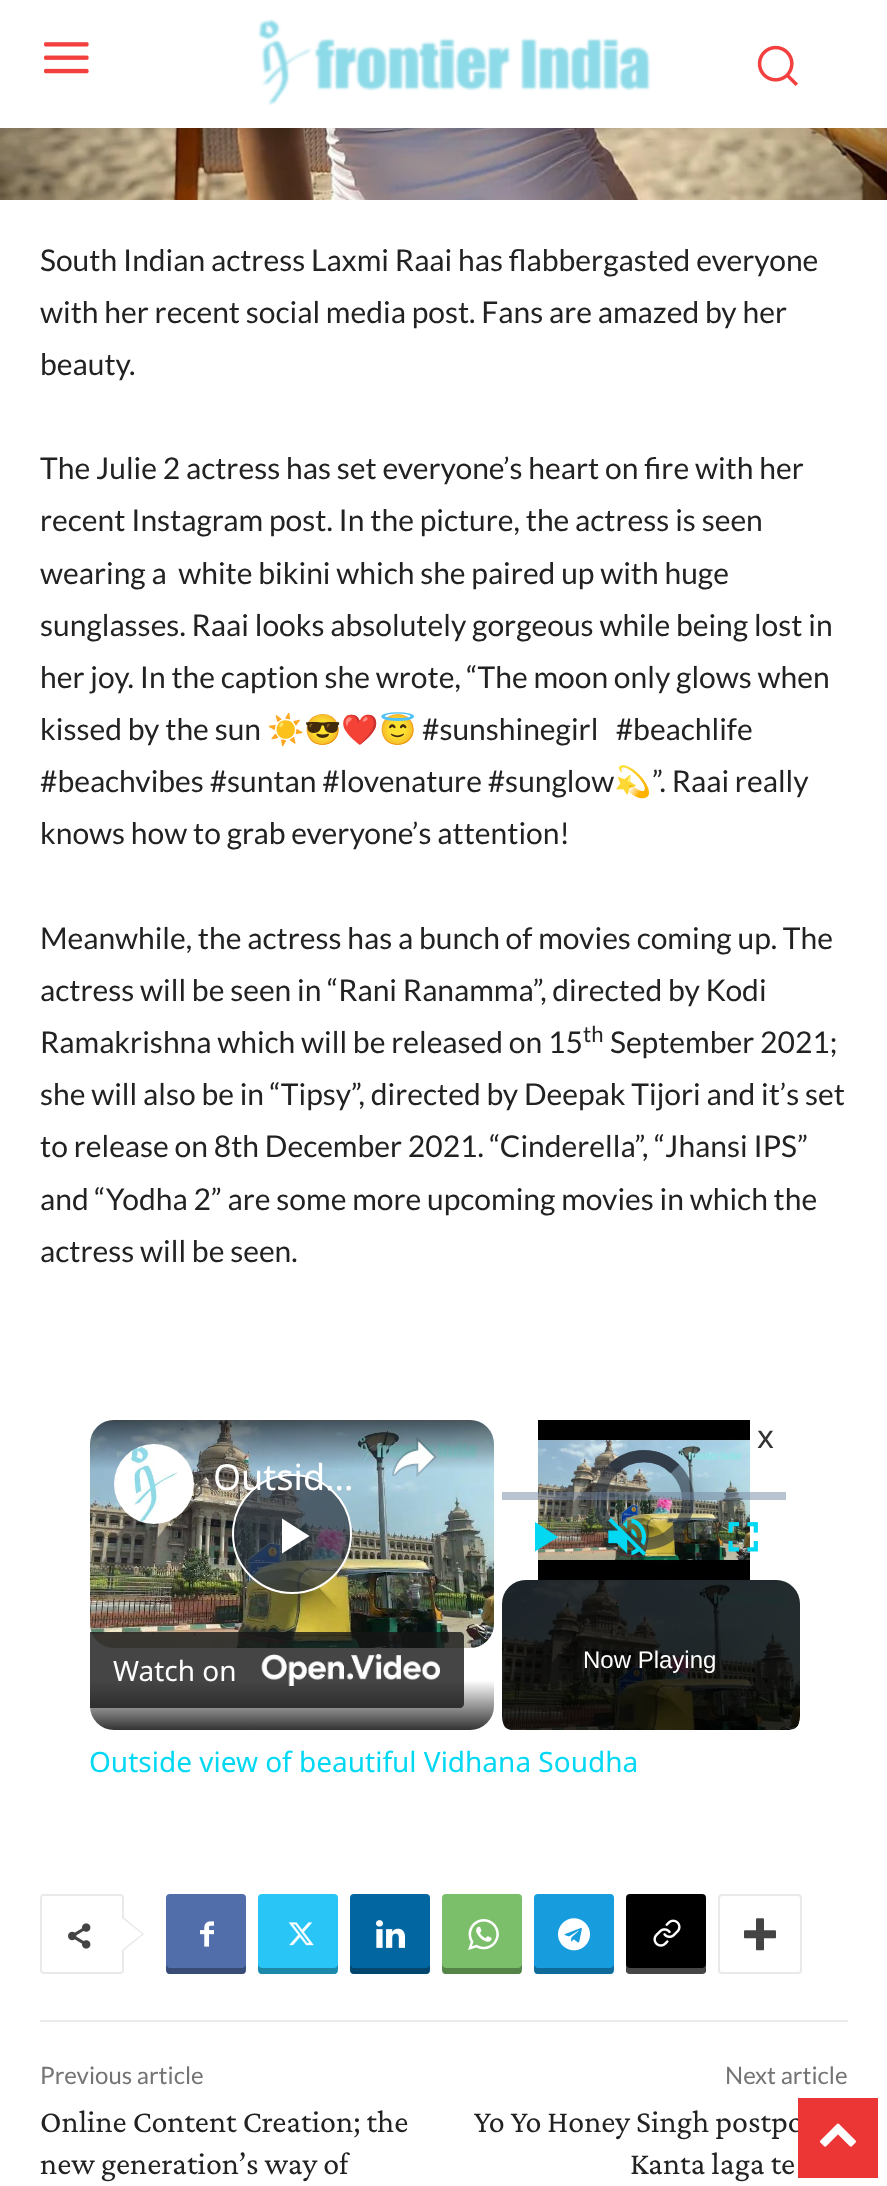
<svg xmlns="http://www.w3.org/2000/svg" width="887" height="2186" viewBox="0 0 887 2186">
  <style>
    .t1 { font: 30px Lato; fill: #222; }
    .t2 { font: 30px Noto Color Emoji; fill: #222; }
    .t3 { font: 22px Lato; fill: #222; }
    .t4 { font: 36px Noto Sans; fill: #fff; }
    .t5 { font: 28px Noto Sans; fill: #fff; }
    .t6 { font: 32px Noto Sans; fill: #333; }
    .t7 { font: 24px Liberation Sans; fill: #fff; }
    .t8 { font: 28px Noto Sans; fill: #03d8f3; }
    .t9 { font: 24px Lato; fill: #747474; }
    .t10 { font: 32px Crimson Pro; fill: #222; }
  </style>
  <defs>
    <clipPath id="clip1"><rect x="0" y="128" width="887" height="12"/></clipPath>
    <linearGradient id="g1" gradientUnits="userSpaceOnUse" x1="292" y1="1420" x2="292" y2="1730"><stop offset="0" stop-color="#000" stop-opacity="0.6"/><stop offset="0.16" stop-color="#000" stop-opacity="0"/><stop offset="0.84" stop-color="#000" stop-opacity="0"/><stop offset="1" stop-color="#000" stop-opacity="0.8"/></linearGradient>
    <clipPath id="clip2"><rect x="494" y="1420" width="306" height="310" rx="10"/></clipPath>
    <clipPath id="clip3"><rect x="502" y="1580" width="298" height="150" rx="10"/></clipPath>
    <clipPath id="clip4"><rect x="166" y="1894" width="80" height="80"/></clipPath>
    <clipPath id="clip5"><rect x="258" y="1894" width="80" height="80"/></clipPath>
    <clipPath id="clip6"><rect x="350" y="1894" width="80" height="80"/></clipPath>
    <clipPath id="clip7"><rect x="442" y="1894" width="80" height="80"/></clipPath>
    <clipPath id="clip8"><rect x="534" y="1894" width="80" height="80"/></clipPath>
    <clipPath id="clip9"><rect x="626" y="1894" width="80" height="80"/></clipPath>
  </defs>
  <rect width="100%" height="100%" fill="#fff"/>
  <image x="44" y="42" width="45" height="32" href="images/1.png"/>
  <image x="257" y="19" width="394" height="86" href="images/2.png"/>
  <image x="757" y="45" width="41" height="41" href="images/3.png"/>
  <image x="0" y="128" width="887" height="72" href="images/4.png"/>
  <g clip-path="url(#clip1)">
    <rect x="0" y="4" width="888" height="128" fill="#00000017" filter="blur(10px)"/>
  </g>
  <text x="40" y="271" class="t1">South Indian actress Laxmi Raai has flabbergasted everyone</text>
  <text x="40" y="323" class="t1">with her recent social media post. Fans are amazed by her</text>
  <text x="40" y="375" class="t1">beauty.</text>
  <text x="40" y="479" class="t1">The Julie 2 actress has set everyone’s heart on fire with her</text>
  <text x="40" y="531" class="t1">recent Instagram post. In the picture, the actress is seen</text>
  <text x="40" y="584" class="t1" xml:space="preserve">wearing a  white bikini which she paired up with huge</text>
  <text x="40" y="636" class="t1">sunglasses. Raai looks absolutely gorgeous while being lost in</text>
  <text x="40" y="688" class="t1">her joy. In the caption she wrote, “The moon only glows when</text>
  <text x="40" y="740" class="t1">kissed by the sun</text>
  <text x="267" y="740" class="t2">☀️😎❤️😇</text>
  <text x="422" y="740" class="t1" xml:space="preserve">#sunshinegirl   #beachlife</text>
  <text x="40" y="792" class="t1">#beachvibes #suntan #lovenature #sunglow</text>
  <text x="614" y="792" class="t2">💫</text>
  <text x="652" y="792" class="t1">”. Raai really</text>
  <text x="40" y="844" class="t1">knows how to grab everyone’s attention!</text>
  <text x="40" y="949" class="t1">Meanwhile, the actress has a bunch of movies coming up. The</text>
  <text x="40" y="1001" class="t1">actress will be seen in “Rani Ranamma”, directed by Kodi</text>
  <text x="40" y="1053" class="t1">Ramakrishna which will be released on 15</text>
  <text x="583" y="1042" class="t3">th</text>
  <text x="610" y="1053" class="t1">September 2021;</text>
  <text x="40" y="1105" class="t1">she will also be in “Tipsy”, directed by Deepak Tijori and it’s set</text>
  <text x="40" y="1157" class="t1">to release on 8th December 2021. “Cinderella”, “Jhansi IPS”</text>
  <text x="40" y="1210" class="t1">and “Yodha 2” are some more upcoming movies in which the</text>
  <text x="40" y="1262" class="t1">actress will be seen.</text>
  <image x="90" y="1420" width="404" height="228" href="images/5.png"/>
  <circle cx="292" cy="1534" r="59" fill="#2b333fb3" stroke="#fff" stroke-width="2"/>
  <path d="M282 1518.5V1553.5L309.5 1536Z" fill="#fff"/>
  <rect x="90" y="1420" width="404" height="310" rx="24" fill="url(#g1)"/>
  <image x="114" y="1444" width="80" height="80" href="images/6.png"/>
  <text x="213" y="1490" class="t4">Outsid…</text>
  <image x="392" y="1437" width="45" height="40" href="images/7.png"/>
  <path d="M90 1632H460C462 1632 464 1634 464 1636V1704C464 1706 462 1708 460 1708H90Z" fill="#171717cc"/>
  <text x="113" y="1681" class="t5">Watch on</text>
  <image x="261" y="1654" width="179" height="32" href="images/8.png"/>
  <image x="538" y="1420" width="212" height="160" href="images/9.png"/>
  <circle cx="644" cy="1500" r="44" fill="none" stroke="#2b333f96" stroke-width="12"/>
  <path d="M613 1469C630 1452 658 1452 675 1469" fill="none" stroke="#2b333f96" stroke-width="12"/>
  <path d="M613 1469C630 1452 658 1452 675 1469" fill="none" stroke="#2b333f96" stroke-width="12"/>
  <rect x="502" y="1492" width="284" height="8" fill="#73859f80"/>
  <path d="M535 1522V1551.5L558 1537Z" fill="#03d8f3"/>
  <image x="608" y="1518" width="39" height="38" href="images/10.png"/>
  <image x="728" y="1522" width="30" height="30" href="images/11.png"/>
  <text x="757" y="1448" class="t6">x</text>
  <g clip-path="url(#clip2)">
    <g clip-path="url(#clip3)">
      <rect x="502" y="1580" width="298" height="160" rx="24" fill="#000"/>
    </g>
  </g>
  <image x="502" y="1580" width="298" height="150" href="images/12.png"/>
  <text x="583" y="1668" class="t7">Now Playing</text>
  <text x="89" y="1772" class="t8">Outside view of beautiful Vidhana Soudha</text>
  <rect x="41" y="1895" width="82" height="78" rx="3" fill="none" stroke="#e9e9e9" stroke-width="2"/>
  <path d="M122 1952V1916L144 1934Z" fill="#e9e9e9"/>
  <image x="68" y="1923" width="23" height="26" href="images/13.png"/>
  <path d="M122 1950V1918L142 1934Z" fill="#fff"/>
  <rect x="166" y="1894" width="80" height="80" rx="4" fill="#516eab"/>
  <g clip-path="url(#clip4)">
    <path d="M166 1964C166 1977 167 1974 182 1974H230C245 1974 246 1977 246 1964C246 1966 244 1968 242 1968H170C168 1968 166 1966 166 1964Z" fill="#0000004f"/>
  </g>
  <image x="200" y="1921" width="14" height="26" href="images/14.png"/>
  <rect x="258" y="1894" width="80" height="80" rx="4" fill="#29c5f6"/>
  <g clip-path="url(#clip5)">
    <path d="M258 1964C258 1977 259 1974 274 1974H322C337 1974 338 1977 338 1964C338 1966 336 1968 334 1968H262C260 1968 258 1966 258 1964Z" fill="#0000004f"/>
  </g>
  <image x="288" y="1922" width="26" height="24" href="images/15.png"/>
  <rect x="350" y="1894" width="80" height="80" rx="4" fill="#0266a0"/>
  <g clip-path="url(#clip6)">
    <path d="M350 1964C350 1977 351 1974 366 1974H414C429 1974 430 1977 430 1964C430 1966 428 1968 426 1968H354C352 1968 350 1966 350 1964Z" fill="#0000004f"/>
  </g>
  <image x="376" y="1920" width="29" height="28" href="images/16.png"/>
  <rect x="442" y="1894" width="80" height="80" rx="4" fill="#7bbf6a"/>
  <g clip-path="url(#clip7)">
    <path d="M442 1964C442 1977 443 1974 458 1974H506C521 1974 522 1977 522 1964C522 1966 520 1968 518 1968H446C444 1968 442 1966 442 1964Z" fill="#0000004f"/>
  </g>
  <image x="468" y="1919" width="31" height="31" href="images/17.png"/>
  <rect x="534" y="1894" width="80" height="80" rx="4" fill="#179cde"/>
  <g clip-path="url(#clip8)">
    <path d="M534 1964C534 1977 535 1974 550 1974H598C613 1974 614 1977 614 1964C614 1966 612 1968 610 1968H538C536 1968 534 1966 534 1964Z" fill="#0000004f"/>
  </g>
  <image x="558" y="1918" width="32" height="33" href="images/18.png"/>
  <rect x="626" y="1894" width="80" height="80" rx="4" fill="#000"/>
  <g clip-path="url(#clip9)">
    <path d="M626 1964C626 1977 627 1974 642 1974H690C705 1974 706 1977 706 1964C706 1966 704 1968 702 1968H630C628 1968 626 1966 626 1964Z" fill="#ffffff47"/>
  </g>
  <image x="653" y="1919" width="28" height="28" href="images/19.png"/>
  <rect x="719" y="1895" width="82" height="78" rx="3" fill="none" stroke="#e9e9e9" stroke-width="2"/>
  <image x="744" y="1918" width="32" height="33" href="images/20.png"/>
  <rect x="40" y="2020" width="808" height="2" fill="#ebebeb"/>
  <text x="40" y="2084" class="t9">Previous article</text>
  <text x="40" y="2132" class="t10">Online Content Creation; the</text>
  <text x="40" y="2174" class="t10">new generation’s way of</text>
  <text x="725" y="2084" class="t9">Next article</text>
  <text x="474" y="2132" class="t10">Yo Yo Honey Singh postpo</text>
  <text x="630" y="2174" class="t10">Kanta laga te</text>
  <rect x="798" y="2098" width="80" height="80" fill="#ec3535"/>
  <image x="820" y="2123" width="36" height="24" href="images/21.png"/>
</svg>
